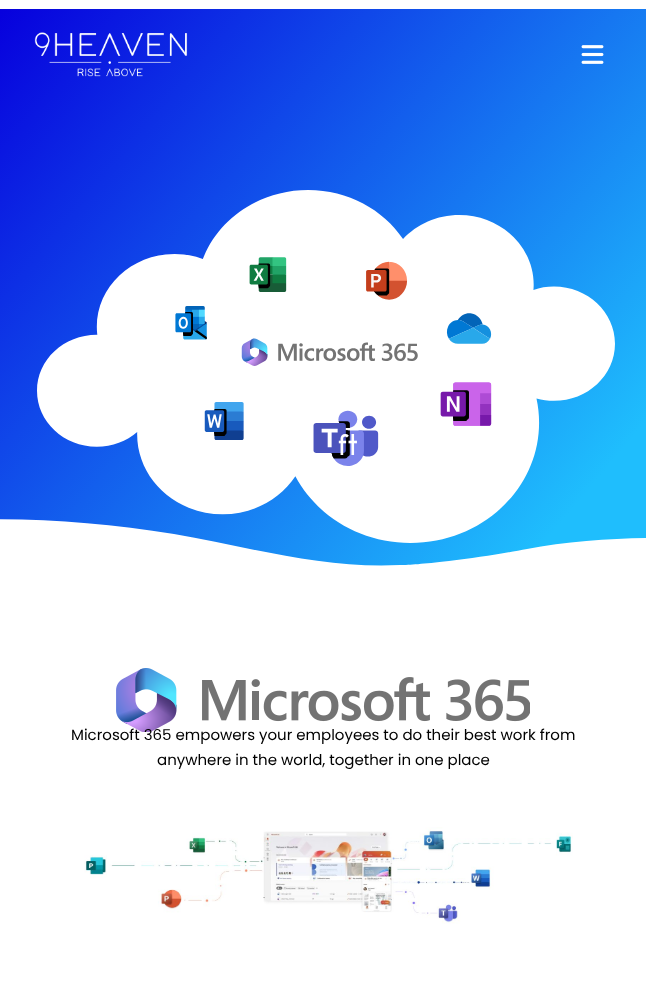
<svg xmlns="http://www.w3.org/2000/svg" width="646" height="1004" viewBox="0 0 646 1004">
  <style>
    .t1 { font: bold 29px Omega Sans; letter-spacing: 1px; fill: #fff; }
    .t2 { font: 15px Poppins; fill: #000; }
  </style>
  <defs>
    <linearGradient id="g1" gradientUnits="userSpaceOnUse" x1="-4.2" y1="14" x2="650" y2="563"><stop offset="0" stop-color="#0700dd"/><stop offset="0.89" stop-color="#1fbefd"/></linearGradient>
  </defs>
  <rect width="100%" height="100%" fill="#fff"/>
  <rect x="0" y="9" width="646" height="557" fill="url(#g1)"/>
  <image x="34" y="32" width="154" height="45" href="images/1.png"/>
  <image x="581" y="45" width="23" height="19" href="images/2.png"/>
  <path d="M400 565C323 569 249 547 174 534C101 522 28 517-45 520C-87 522-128 526-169 534V568H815V553C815 553 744 537 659 538C620 538 568 541 527 549C506 553 476 558 449 561C422 564 410 565 400 565Z" fill="#fff"/>
  <image x="37" y="190" width="578" height="353" href="images/3.png"/>
  <text x="338" y="455" class="t1">ft</text>
  <image x="116" y="668" width="414" height="64" href="images/4.png"/>
  <text x="71" y="740" class="t2">Microsoft 365 empowers your employees to do their best work from</text>
  <text x="157" y="765" class="t2">anywhere in the world, together in one place</text>
  <image x="84" y="827" width="489" height="97" href="images/5.png"/>
</svg>
